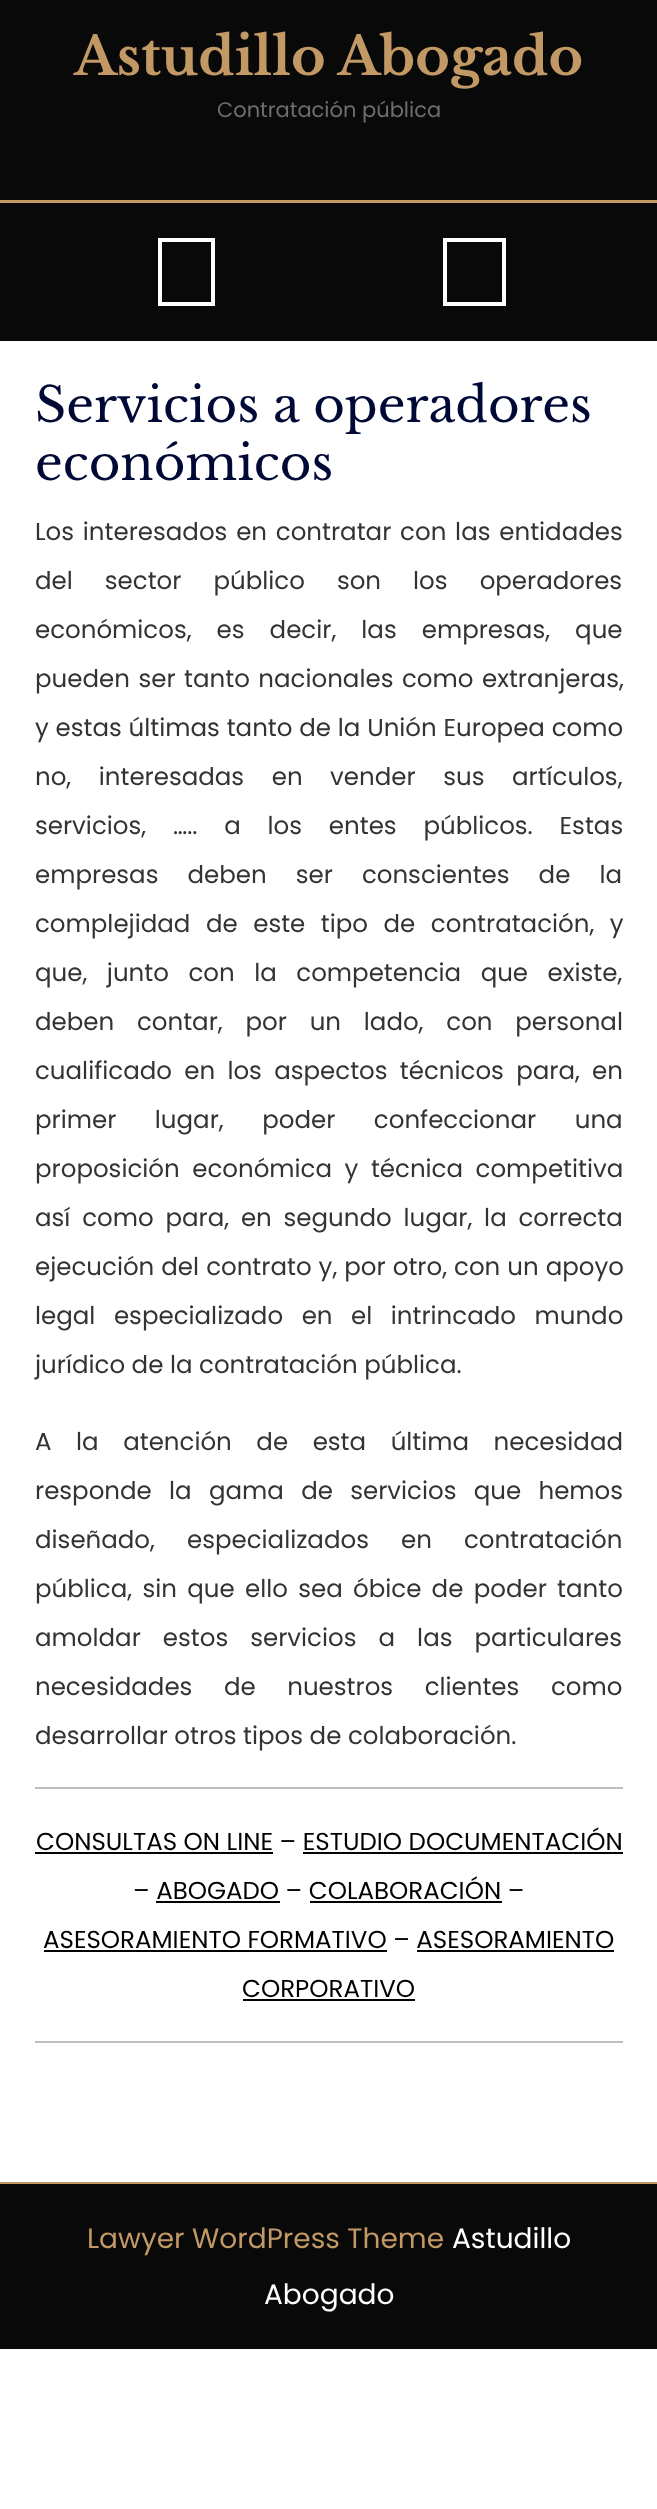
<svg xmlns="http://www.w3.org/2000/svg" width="657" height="2509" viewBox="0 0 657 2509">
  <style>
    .t1 { font: bold 52.5px Libre Baskerville; fill: #c29965; }
    .t2 { font: 21px Poppins; fill: #6f6c6c; }
    .t3 { font: 48.4px Libre Baskerville; fill: #000835; }
    .t4 { font: 24.5px Poppins; fill: #333; }
    .t5 { font: 24.5px Poppins; fill: #000; }
    .t6 { font: 28px Poppins; fill: #c29965; }
    .t7 { font: 28px Poppins; fill: #fff; }
  </style>
  <rect width="100%" height="100%" fill="#fff"/>
  <rect x="0" y="0" width="657" height="200" fill="#090909"/>
  <rect x="0" y="200" width="657" height="3" fill="#c29965"/>
  <text x="74" y="75" class="t1">Astudillo Abogado</text>
  <text x="217" y="117" class="t2">Contratación pública</text>
  <rect x="0" y="203" width="657" height="138" fill="#090909"/>
  <rect x="160" y="240" width="53" height="64" fill="none" stroke="#fff" stroke-width="4"/>
  <rect x="445" y="240" width="59" height="64" fill="none" stroke="#fff" stroke-width="4"/>
  <text x="35" y="422" class="t3">Servicios a operadores</text>
  <text x="35" y="480" class="t3">económicos</text>
  <text x="35" y="540" word-spacing="2.25" class="t4">Los interesados en contratar con las entidades</text>
  <text x="35" y="589" word-spacing="25.5" class="t4">del sector público son los operadores</text>
  <text x="35" y="638" word-spacing="18.5" class="t4">económicos, es decir, las empresas, que</text>
  <text x="35" y="687" word-spacing="2" class="t4">pueden ser tanto nacionales como extranjeras,</text>
  <text x="35" y="736" word-spacing="0.25" class="t4">y estas últimas tanto de la Unión Europea como</text>
  <text x="35" y="785" word-spacing="21" class="t4">no, interesadas en vender sus artículos,</text>
  <text x="35" y="834" word-spacing="20.25" class="t4">servicios, ….. a los entes públicos. Estas</text>
  <text x="35" y="883" word-spacing="22.5" class="t4">empresas deben ser conscientes de la</text>
  <text x="35" y="932" word-spacing="9" class="t4">complejidad de este tipo de contratación, y</text>
  <text x="35" y="981" word-spacing="13" class="t4">que, junto con la competencia que existe,</text>
  <text x="35" y="1030" word-spacing="16.25" class="t4">deben contar, por un lado, con personal</text>
  <text x="35" y="1079" word-spacing="5.75" class="t4">cualificado en los aspectos técnicos para, en</text>
  <text x="35" y="1128" word-spacing="32" class="t4">primer lugar, poder confeccionar una</text>
  <text x="35" y="1177" word-spacing="6" class="t4">proposición económica y técnica competitiva</text>
  <text x="35" y="1226" word-spacing="5.25" class="t4">así como para, en segundo lugar, la correcta</text>
  <text x="35" y="1275" word-spacing="0.5" class="t4">ejecución del contrato y, por otro, con un apoyo</text>
  <text x="35" y="1324" word-spacing="12" class="t4">legal especializado en el intrincado mundo</text>
  <text x="35" y="1373" class="t4">jurídico de la contratación pública.</text>
  <text x="35" y="1450" word-spacing="18" class="t4">A la atención de esta última necesidad</text>
  <text x="35" y="1499" word-spacing="10.75" class="t4">responde la gama de servicios que hemos</text>
  <text x="35" y="1548" word-spacing="25.5" class="t4">diseñado, especializados en contratación</text>
  <text x="35" y="1597" word-spacing="3.75" class="t4">pública, sin que ello sea óbice de poder tanto</text>
  <text x="35" y="1646" word-spacing="15.5" class="t4">amoldar estos servicios a las particulares</text>
  <text x="35" y="1695" word-spacing="25" class="t4">necesidades de nuestros clientes como</text>
  <text x="35" y="1744" class="t4">desarrollar otros tipos de colaboración.</text>
  <rect x="35" y="1787" width="588" height="2" fill="#bfbfbf"/>
  <text x="36" y="1850" class="t5">CONSULTAS ON LINE – ESTUDIO DOCUMENTACIÓN</text>
  <rect x="35" y="1852" width="238" height="2" fill="#000"/>
  <rect x="303" y="1852" width="320" height="2" fill="#000"/>
  <text x="133" y="1899" class="t5">– ABOGADO – COLABORACIÓN –</text>
  <rect x="156" y="1901" width="124" height="2" fill="#000"/>
  <rect x="310" y="1901" width="192" height="2" fill="#000"/>
  <text x="43" y="1948" class="t5">ASESORAMIENTO FORMATIVO – ASESORAMIENTO</text>
  <rect x="44" y="1950" width="343" height="2" fill="#000"/>
  <rect x="417" y="1950" width="197" height="2" fill="#000"/>
  <text x="242" y="1997" class="t5">CORPORATIVO</text>
  <rect x="243" y="1999" width="172" height="2" fill="#000"/>
  <rect x="35" y="2041" width="588" height="2" fill="#bfbfbf"/>
  <rect x="0" y="2184" width="657" height="165" fill="#090909"/>
  <rect x="0" y="2182" width="657" height="2" fill="#c29965"/>
  <text x="87" y="2248" class="t6">Lawyer WordPress Theme</text>
  <text x="452" y="2248" class="t7">Astudillo</text>
  <text x="264" y="2304" class="t7">Abogado</text>
</svg>
